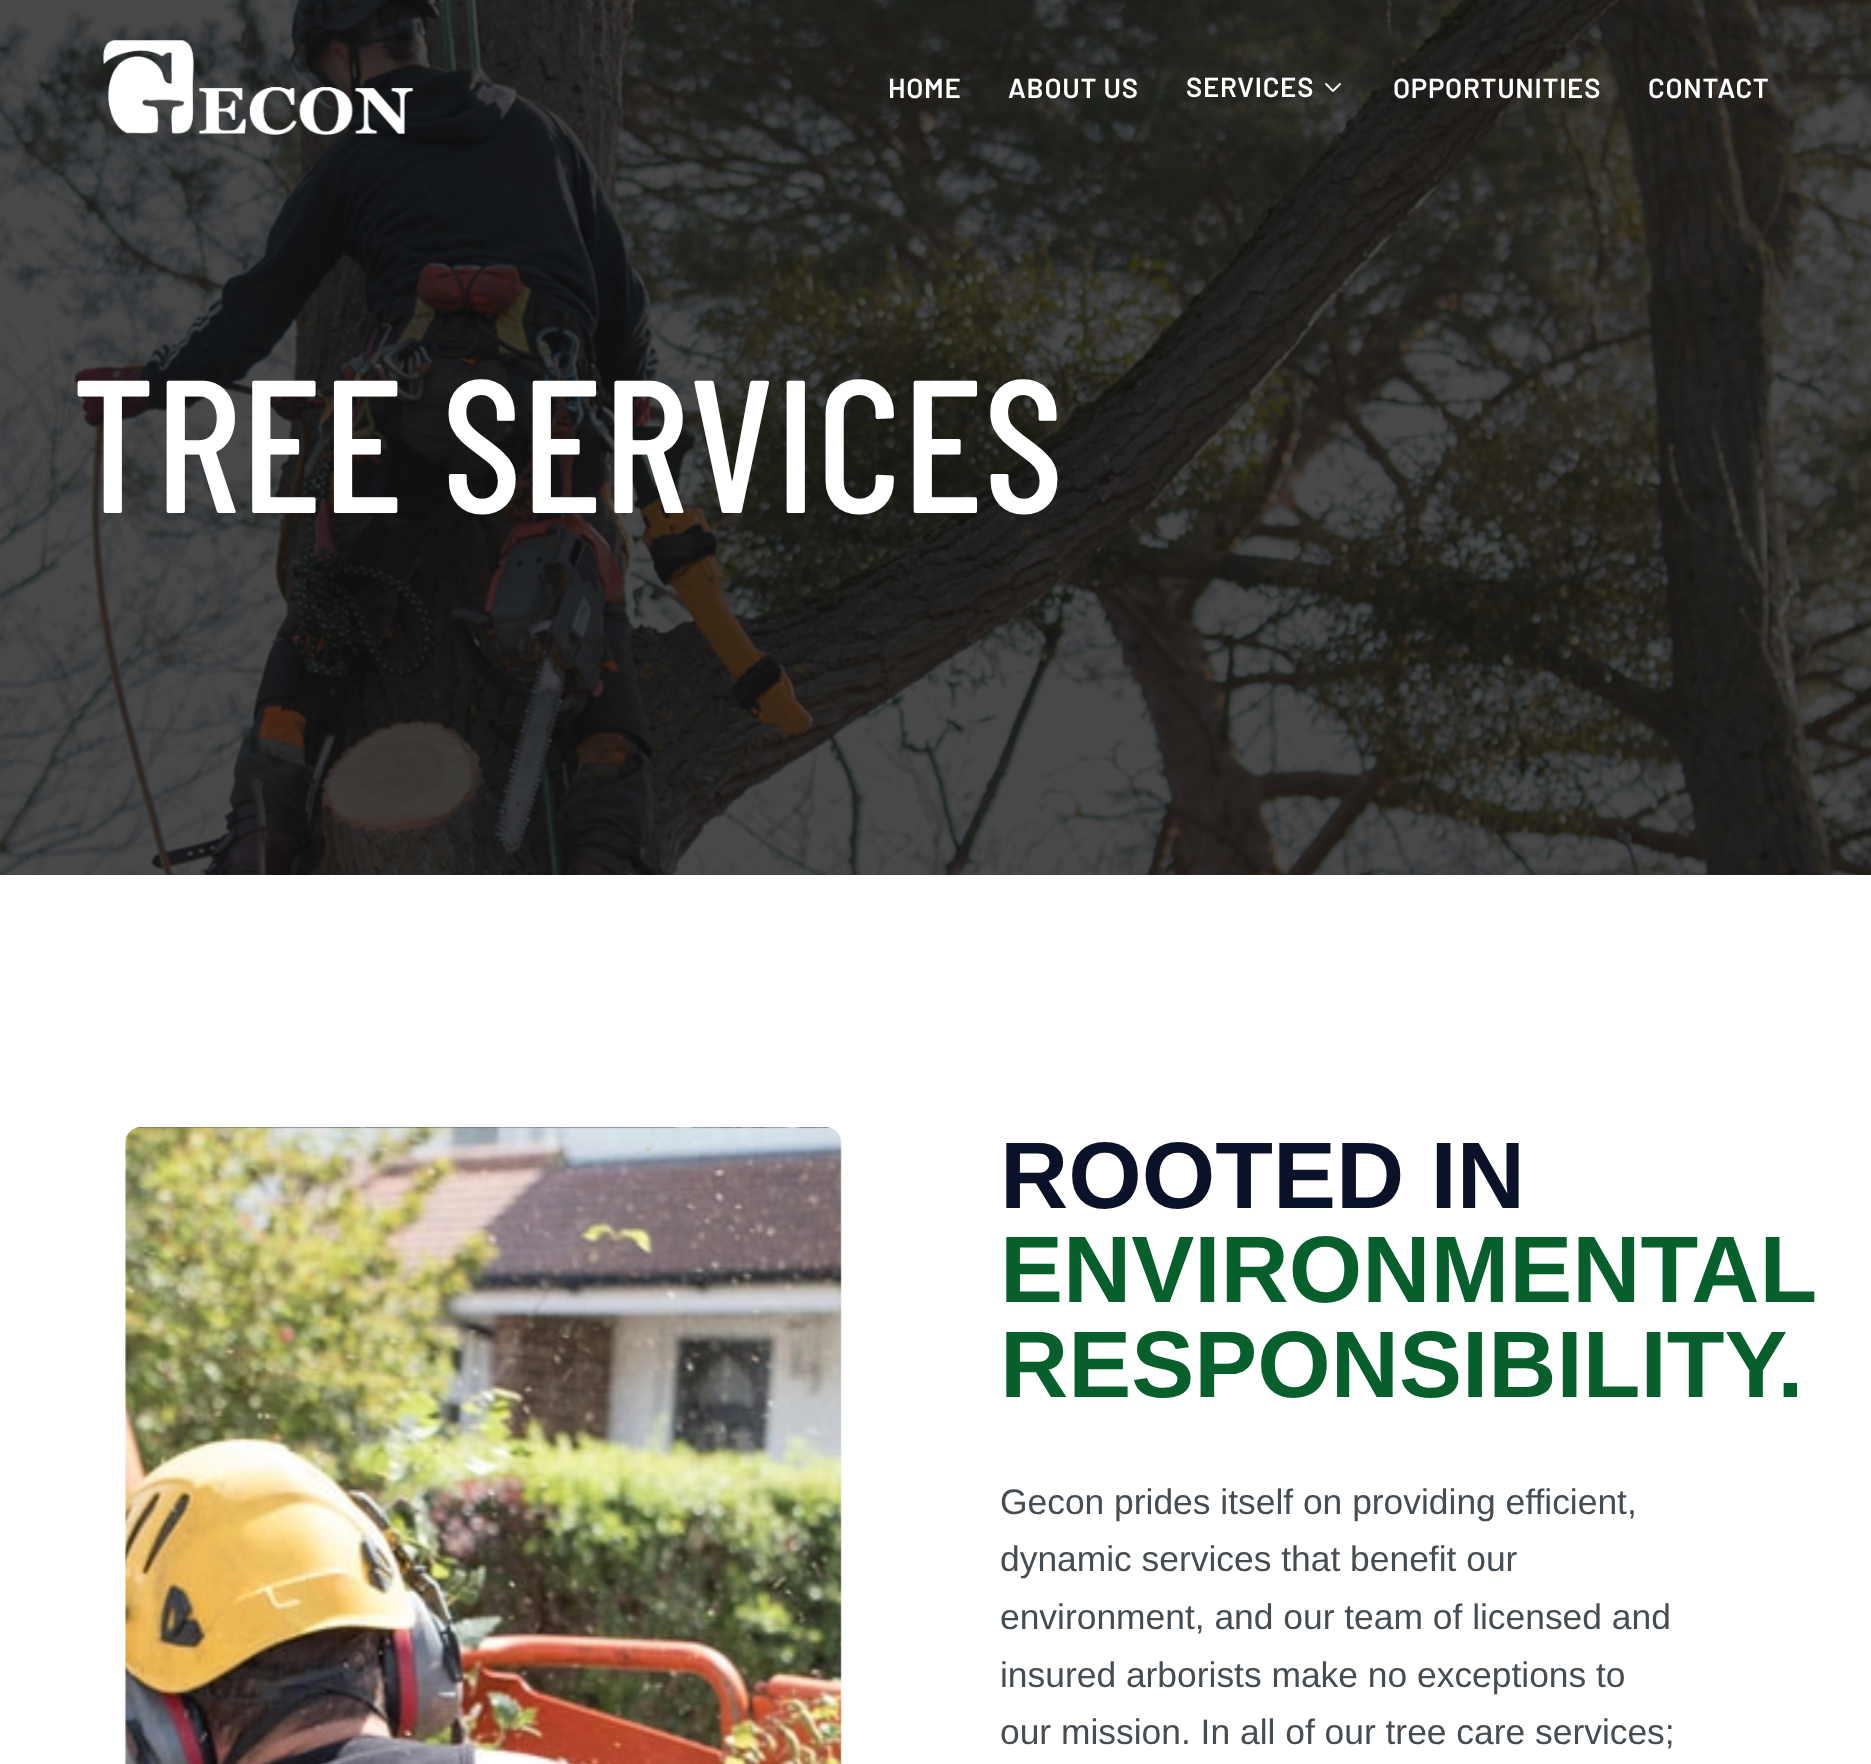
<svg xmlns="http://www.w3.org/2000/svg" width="1871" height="1764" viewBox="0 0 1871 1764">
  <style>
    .t1 { font: 600 27.5px Barlow; letter-spacing: 0.75px; fill: #fff; }
    .t2 { font: 500 189px Barlow Condensed; fill: #fff; }
    .t3 { font: bold 94.5px Liberation Sans; fill: #0a122a; }
    .t4 { font: bold 94.5px Liberation Sans; fill: #075f2c; }
    .t5 { font: 35.4px Liberation Sans; fill: #454d53; }
  </style>
  <rect width="100%" height="100%" fill="#fff"/>
  <image x="0" y="0" width="1871" height="875" href="images/2.png"/>
  <image x="103" y="40" width="311" height="95" href="images/1.png"/>
  <text x="888" y="98" class="t1">HOME</text>
  <text x="1008" y="98" class="t1">ABOUT US</text>
  <text x="1186" y="97" class="t1">SERVICES</text>
  <path d="M1340 84L1333 91L1326 84" fill="none" stroke="#fff" stroke-width="2" stroke-linecap="round" stroke-linejoin="round"/>
  <text x="1393" y="98" class="t1">OPPORTUNITIES</text>
  <text x="1648" y="98" class="t1">CONTACT</text>
  <text x="72" y="513" class="t2">TREE SERVICES</text>
  <image x="125" y="1127" width="717" height="637" href="images/3.png"/>
  <text x="1000" y="1208" class="t3">ROOTED IN</text>
  <text x="1000" y="1302" class="t4">ENVIRONMENTAL</text>
  <text x="1000" y="1397" class="t4">RESPONSIBILITY.</text>
  <text x="1000" y="1514" class="t5">Gecon prides itself on providing efficient,</text>
  <text x="1000" y="1571" class="t5">dynamic services that benefit our</text>
  <text x="1000" y="1629" class="t5">environment, and our team of licensed and</text>
  <text x="1000" y="1687" class="t5">insured arborists make no exceptions to</text>
  <text x="1000" y="1744" class="t5">our mission. In all of our tree care services;</text>
</svg>
